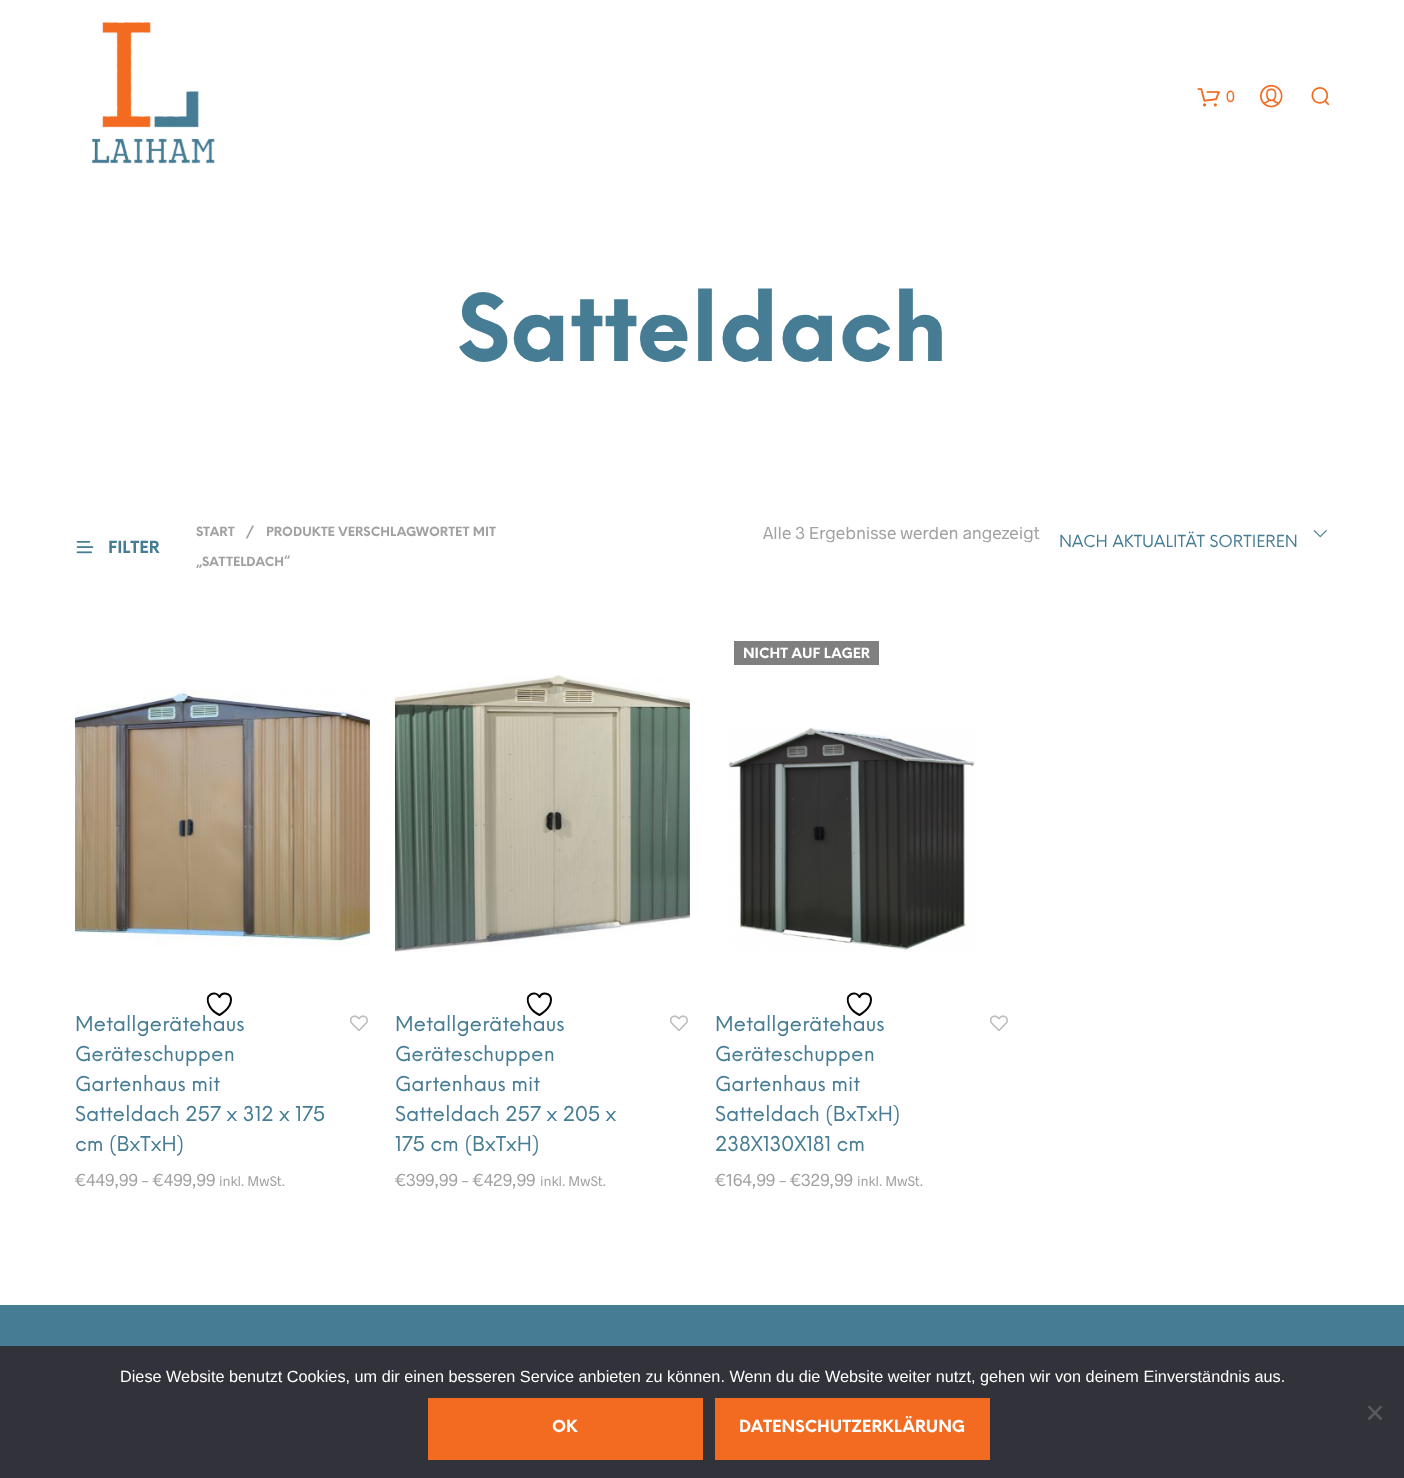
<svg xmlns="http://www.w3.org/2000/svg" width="1404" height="1478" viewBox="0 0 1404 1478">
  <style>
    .t1 { font: 16.25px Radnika; fill: #f26b21; }
    .t2 { font: bold 90.75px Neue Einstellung; fill: #467d95; }
    .t3 { font: bold 16.25px Neue Einstellung; fill: #467d95; }
    .t4 { font: bold 12.5px Neue Einstellung; fill: #a1a1a1; }
    .t5 { font: 17.5px Radnika; fill: #a1a1a1; }
    .t6 { font: 16.25px Neue Einstellung; fill: #467d95; }
    .t7 { font: 20px Neue Einstellung; fill: #467d95; }
    .t8 { font: 14px Radnika; fill: #a1a1a1; }
    .t9 { font: bold 13.75px Neue Einstellung; fill: #fff; }
    .t10 { font: 16.25px Liberation Sans; fill: #fff; }
    .t11 { font: bold 16.25px Neue Einstellung; fill: #fff; }
  </style>
  <rect width="100%" height="100%" fill="#fff"/>
  <image x="92" y="22" width="123" height="142" href="images/1.png"/>
  <image x="1197" y="88" width="23" height="19" href="images/2.png"/>
  <text x="1226" y="102" class="t1">0</text>
  <image x="1260" y="84" width="23" height="24" href="images/3.png"/>
  <image x="1311" y="87" width="19" height="19" href="images/4.png"/>
  <text x="457" y="361" class="t2">Satteldach</text>
  <image x="76" y="541" width="18" height="13" href="images/5.png"/>
  <text x="108" y="553" class="t3">FILTER</text>
  <text x="196" y="536" class="t4">START</text>
  <text x="246" y="536" class="t4">/</text>
  <text x="266" y="536" class="t4">PRODUKTE VERSCHLAGWORTET MIT</text>
  <text x="196" y="566" class="t4">„SATTELDACH“</text>
  <text x="763" y="539" class="t5">Alle 3 Ergebnisse werden angezeigt</text>
  <text x="1059" y="547" class="t6">NACH AKTUALITÄT SORTIEREN</text>
  <image x="1313" y="530" width="14" height="8" href="images/6.png"/>
  <image x="75" y="690" width="295" height="256" href="images/7.png"/>
  <text x="75" y="1031" class="t7">Metallgerätehaus</text>
  <path d="M231 999.5C231 993 222 991.5 219.5 997C216 989.5 203 994.5 209.5 1006C211.5 1010 215.5 1013 219.5 1015C219.5 1015 231 1009 231 999.5Z" fill="none" stroke="#000" stroke-width="2" stroke-linecap="round" stroke-linejoin="round"/>
  <image x="349" y="1015" width="19" height="17" href="images/8.png"/>
  <text x="75" y="1061" class="t7">Geräteschuppen</text>
  <text x="75" y="1091" class="t7">Gartenhaus mit</text>
  <text x="75" y="1121" class="t7">Satteldach 257 x 312 x 175</text>
  <text x="75" y="1151" class="t7">cm (BxTxH)</text>
  <text x="75" y="1186" class="t5">€449,99 – €499,99</text>
  <text x="219" y="1186" class="t8">inkl. MwSt.</text>
  <image x="395" y="675" width="295" height="277" href="images/9.png"/>
  <text x="395" y="1031" class="t7">Metallgerätehaus</text>
  <path d="M551 999.5C551 993 542 991.5 539.5 997C536 989.5 523 994.5 529.5 1006C531.5 1010 535.5 1013 539.5 1015C539.5 1015 551 1009 551 999.5Z" fill="none" stroke="#000" stroke-width="2" stroke-linecap="round" stroke-linejoin="round"/>
  <image x="669" y="1015" width="19" height="17" href="images/8.png"/>
  <text x="395" y="1061" class="t7">Geräteschuppen</text>
  <text x="395" y="1091" class="t7">Gartenhaus mit</text>
  <text x="395" y="1121" class="t7">Satteldach 257 x 205 x</text>
  <text x="395" y="1151" class="t7">175 cm (BxTxH)</text>
  <text x="395" y="1186" class="t5">€399,99 – €429,99</text>
  <text x="540" y="1186" class="t8">inkl. MwSt.</text>
  <rect x="734" y="641" width="145" height="24" fill="#808080"/>
  <text x="743" y="658" class="t9">NICHT AUF LAGER</text>
  <image x="728" y="727" width="247" height="223" href="images/10.png"/>
  <text x="715" y="1031" class="t7">Metallgerätehaus</text>
  <path d="M871 999.5C871 993 862 991.5 859.5 997C856 989.5 843 994.5 849.5 1006C851.5 1010 855.5 1013 859.5 1015C859.5 1015 871 1009 871 999.5Z" fill="none" stroke="#000" stroke-width="2" stroke-linecap="round" stroke-linejoin="round"/>
  <image x="989" y="1015" width="19" height="17" href="images/8.png"/>
  <text x="715" y="1061" class="t7">Geräteschuppen</text>
  <text x="715" y="1091" class="t7">Gartenhaus mit</text>
  <text x="715" y="1121" class="t7">Satteldach (BxTxH)</text>
  <text x="715" y="1151" class="t7">238X130X181 cm</text>
  <text x="715" y="1186" class="t5">€164,99 – €329,99</text>
  <text x="857" y="1186" class="t8">inkl. MwSt.</text>
  <rect x="0" y="1305" width="1404" height="41" fill="#467d95"/>
  <rect x="0" y="1346" width="1404" height="132" fill="#32323a"/>
  <text x="120" y="1382" class="t10">Diese Website benutzt Cookies, um dir einen besseren Service anbieten zu können. Wenn du die Website weiter nutzt, gehen wir von deinem Einverständnis aus.</text>
  <path d="M1380.5 1405.5L1382.5 1407L1369.5 1420.5L1367.5 1418.5Z" fill="#59595d"/>
  <path d="M1367.5 1407L1369.5 1405.5L1382.5 1418.5L1380.5 1420.5Z" fill="#59595d"/>
  <rect x="428" y="1398" width="275" height="62" fill="#f26b21"/>
  <text x="552" y="1432" class="t11">OK</text>
  <rect x="715" y="1398" width="275" height="62" fill="#f26b21"/>
  <text x="739" y="1432" class="t11">DATENSCHUTZERKLÄRUNG</text>
</svg>
